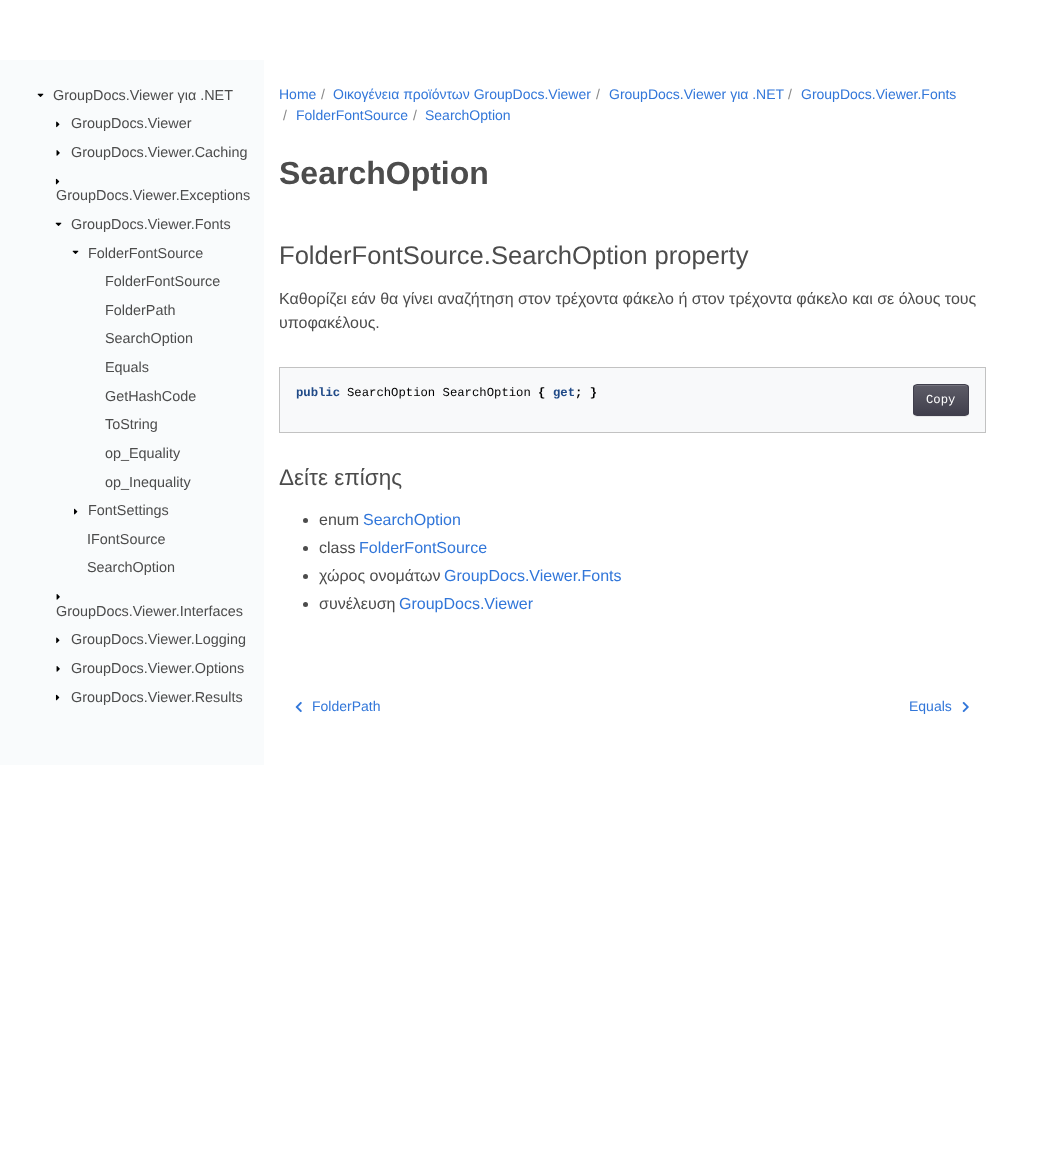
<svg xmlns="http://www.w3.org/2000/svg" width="1054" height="1154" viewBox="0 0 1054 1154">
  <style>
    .t1 { font: 14.4px Liberation Sans; fill: #4c4c4c; }
    .t2 { font: 14px Liberation Sans; fill: #3176d9; }
    .t3 { font: 14px Liberation Sans; fill: #888; }
    .t4 { font: bold 32px Liberation Sans; fill: #4c4c4c; }
    .t5 { font: 25.6px Liberation Sans; fill: #4c4c4c; }
    .t6 { font: 16px Liberation Sans; fill: #4c4c4c; }
    .t7 { font: bold 12.25px Liberation Mono; fill: #204a87; }
    .t8 { font: 12.25px Liberation Mono; fill: #000; }
    .t9 { font: bold 12.25px Liberation Mono; fill: #000; }
    .t10 { font: 12.25px Liberation Mono; fill: #fff; }
    .t11 { font: 22.5px Liberation Sans; fill: #4c4c4c; }
    .t12 { font: 16px Liberation Sans; fill: #3176d9; }
  </style>
  <defs>
    <clipPath id="clip1"><rect x="913" y="384" width="56" height="32" rx="4"/></clipPath>
    <linearGradient id="g1" gradientUnits="userSpaceOnUse" x1="941" y1="385" x2="941" y2="415"><stop offset="0" stop-color="#5d5c67"/><stop offset="1" stop-color="#403f4c"/></linearGradient>
  </defs>
  <rect width="100%" height="100%" fill="#fff"/>
  <rect x="0" y="60" width="264" height="705" fill="#f9fbfc"/>
  <image x="37" y="93" width="7" height="4" href="images/1.png"/>
  <text x="53" y="100" class="t1">GroupDocs.Viewer για .NET</text>
  <image x="56" y="121" width="4" height="7" href="images/2.png"/>
  <text x="71" y="128" class="t1">GroupDocs.Viewer</text>
  <image x="56" y="150" width="4" height="6" href="images/3.png"/>
  <text x="71" y="157" class="t1">GroupDocs.Viewer.Caching</text>
  <image x="55" y="178" width="5" height="7" href="images/4.png"/>
  <text x="56" y="200" class="t1">GroupDocs.Viewer.Exceptions</text>
  <image x="55" y="222" width="7" height="4" href="images/1.png"/>
  <text x="71" y="229" class="t1">GroupDocs.Viewer.Fonts</text>
  <image x="72" y="250" width="7" height="4" href="images/1.png"/>
  <text x="88" y="258" class="t1">FolderFontSource</text>
  <text x="105" y="286" class="t1">FolderFontSource</text>
  <text x="105" y="315" class="t1">FolderPath</text>
  <text x="105" y="343" class="t1">SearchOption</text>
  <text x="105" y="372" class="t1">Equals</text>
  <text x="105" y="401" class="t1">GetHashCode</text>
  <text x="105" y="429" class="t1">ToString</text>
  <text x="105" y="458" class="t1">op_Equality</text>
  <text x="105" y="487" class="t1">op_Inequality</text>
  <image x="74" y="508" width="4" height="7" href="images/5.png"/>
  <text x="88" y="515" class="t1">FontSettings</text>
  <text x="87" y="544" class="t1">IFontSource</text>
  <text x="87" y="572" class="t1">SearchOption</text>
  <image x="56" y="594" width="4" height="6" href="images/6.png"/>
  <text x="56" y="616" class="t1">GroupDocs.Viewer.Interfaces</text>
  <image x="56" y="637" width="4" height="7" href="images/7.png"/>
  <text x="71" y="644" class="t1">GroupDocs.Viewer.Logging</text>
  <image x="56" y="666" width="4" height="6" href="images/8.png"/>
  <text x="71" y="673" class="t1">GroupDocs.Viewer.Options</text>
  <image x="55" y="694" width="5" height="7" href="images/9.png"/>
  <text x="71" y="702" class="t1">GroupDocs.Viewer.Results</text>
  <text x="279" y="99" class="t2">Home</text>
  <text x="321" y="99" class="t3">/</text>
  <text x="333" y="99" class="t2">Οικογένεια προϊόντων GroupDocs.Viewer</text>
  <text x="596" y="99" class="t3">/</text>
  <text x="609" y="99" class="t2">GroupDocs.Viewer για .NET</text>
  <text x="788" y="99" class="t3">/</text>
  <text x="801" y="99" class="t2">GroupDocs.Viewer.Fonts</text>
  <text x="283" y="120" class="t3">/</text>
  <text x="296" y="120" class="t2">FolderFontSource</text>
  <text x="413" y="120" class="t3">/</text>
  <text x="425" y="120" class="t2">SearchOption</text>
  <text x="279" y="184" class="t4">SearchOption</text>
  <text x="279" y="264" class="t5">FolderFontSource.SearchOption property</text>
  <text x="279" y="304" class="t6">Καθορίζει εάν θα γίνει αναζήτηση στον τρέχοντα φάκελο ή στον τρέχοντα φάκελο και σε όλους τους</text>
  <text x="279" y="328" class="t6">υποφακέλους.</text>
  <rect x="279.5" y="367.5" width="706" height="65" fill="#f8f9fa" stroke="#c2c2c2"/>
  <text x="296" y="396" class="t7">public</text>
  <text x="347" y="396" class="t8">SearchOption SearchOption</text>
  <text x="538" y="396" class="t9">{</text>
  <text x="553" y="396" class="t7">get</text>
  <text x="575" y="396" class="t9">; }</text>
  <rect x="913" y="385" width="56" height="32" rx="4" fill="#00000012" filter="blur(0.5px)"/>
  <g clip-path="url(#clip1)">
    <rect x="913" y="385" width="56" height="30" fill="url(#g1)"/>
  </g>
  <path d="M917 386H965C967 386 968 387 968 389C968 383 961 385 957 385H925C921 385 914 383 914 389C914 387 915 386 917 386Z" fill="#75747e"/>
  <rect x="913.5" y="384.5" width="55" height="31" rx="3.5" fill="none" stroke="#403f4c"/>
  <text x="926" y="403" class="t10">Copy</text>
  <text x="279" y="485" class="t11">Δείτε επίσης</text>
  <circle cx="305.5" cy="520.5" r="2.5" fill="#4c4c4c"/>
  <text x="319" y="525" class="t6">enum</text>
  <text x="363" y="525" class="t12">SearchOption</text>
  <circle cx="305.5" cy="548.5" r="2.5" fill="#4c4c4c"/>
  <text x="319" y="553" class="t6">class</text>
  <text x="359" y="553" class="t12">FolderFontSource</text>
  <circle cx="305.5" cy="576.5" r="2.5" fill="#4c4c4c"/>
  <text x="319" y="581" class="t6">χώρος ονομάτων</text>
  <text x="444" y="581" class="t12">GroupDocs.Viewer.Fonts</text>
  <circle cx="305.5" cy="604.5" r="2.5" fill="#4c4c4c"/>
  <text x="319" y="609" class="t6">συνέλευση</text>
  <text x="399" y="609" class="t12">GroupDocs.Viewer</text>
  <image x="295" y="701" width="7" height="12" href="images/10.png"/>
  <text x="312" y="711" class="t2">FolderPath</text>
  <text x="909" y="711" class="t2">Equals</text>
  <image x="962" y="701" width="7" height="12" href="images/11.png"/>
</svg>
